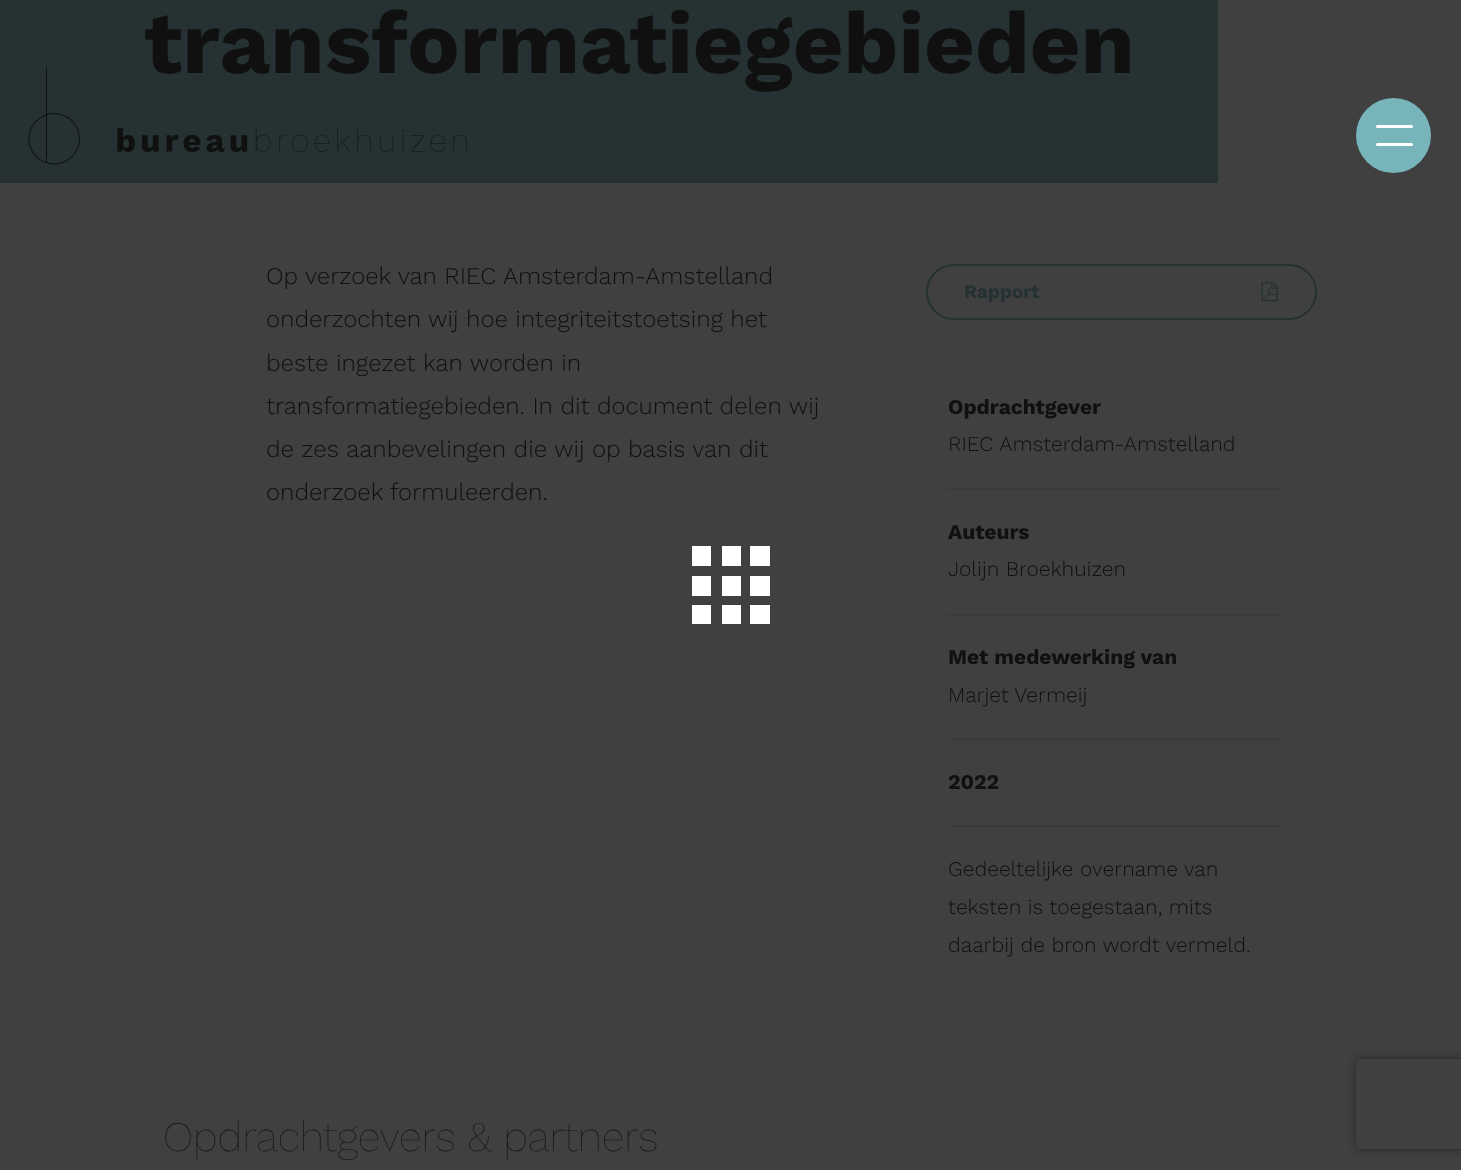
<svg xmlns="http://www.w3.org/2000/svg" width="1461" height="1170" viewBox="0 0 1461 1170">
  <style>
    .t1 { font: bold 87.7px Work Sans; fill: #101010; }
    .t2 { font: 300 24px Work Sans; fill: #101010; }
    .t3 { font: bold 19px Work Sans; fill: #253132; }
    .t4 { font: bold 21px Work Sans; fill: #101010; }
    .t5 { font: 300 21px Work Sans; fill: #101010; }
    .t6 { font: 100 42px Work Sans; fill: #101010; }
  </style>
  <defs>
    <clipPath id="clip1"><path d="M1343 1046H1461V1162H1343ZM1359 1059H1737C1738.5 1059 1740 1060.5 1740 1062V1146C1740 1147.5 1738.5 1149 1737 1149H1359C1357.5 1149 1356 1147.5 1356 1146V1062C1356 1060.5 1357.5 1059 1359 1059Z" clip-rule="evenodd"/></clipPath>
  </defs>
  <rect width="100%" height="100%" fill="#404040"/>
  <rect x="0" y="0" width="1218" height="183" fill="#253132"/>
  <text x="144" y="73" class="t1">transformatiegebieden</text>
  <text x="266" y="284" class="t2">Op verzoek van RIEC Amsterdam-Amstelland</text>
  <text x="266" y="327" class="t2">onderzochten wij hoe integriteitstoetsing het</text>
  <text x="266" y="371" class="t2">beste ingezet kan worden in</text>
  <text x="266" y="414" class="t2">transformatiegebieden. In dit document delen wij</text>
  <text x="266" y="457" class="t2">de zes aanbevelingen die wij op basis van dit</text>
  <text x="266" y="500" class="t2">onderzoek formuleerden.</text>
  <rect x="927" y="265" width="389" height="54" rx="27" fill="none" stroke="#253132" stroke-width="2"/>
  <text x="964" y="298" class="t3">Rapport</text>
  <image x="1261" y="282" width="17" height="20" href="images/1.png"/>
  <text x="948" y="414" class="t4">Opdrachtgever</text>
  <text x="948" y="451" class="t5">RIEC Amsterdam-Amstelland</text>
  <rect x="948" y="488" width="332" height="2" fill="#3b3b3b"/>
  <text x="948" y="539" class="t4">Auteurs</text>
  <text x="948" y="576" class="t5">Jolijn Broekhuizen</text>
  <rect x="948" y="614" width="332" height="2" fill="#3b3b3b"/>
  <text x="948" y="664" class="t4">Met medewerking van</text>
  <text x="948" y="702" class="t5">Marjet Vermeij</text>
  <rect x="948" y="738" width="332" height="2" fill="#3b3b3b"/>
  <text x="948" y="789" class="t4">2022</text>
  <rect x="948" y="825" width="332" height="2" fill="#3b3b3b"/>
  <text x="948" y="876" class="t5">Gedeeltelijke overname van</text>
  <text x="948" y="914" class="t5">teksten is toegestaan, mits</text>
  <text x="948" y="952" class="t5">daarbij de bron wordt vermeld.</text>
  <text x="163" y="1151" class="t6">Opdrachtgevers &amp; partners</text>
  <image x="28" y="67" width="439" height="98" href="images/2.png"/>
  <circle cx="1393.5" cy="135.5" r="37.5" fill="#77b5ba"/>
  <rect x="1376" y="125" width="37" height="3" rx="1.5" fill="#fff"/>
  <rect x="1376" y="143" width="37" height="3" rx="1.5" fill="#fff"/>
  <rect x="692" y="546" width="19" height="20" fill="#fff"/>
  <rect x="722" y="546" width="19" height="20" fill="#fff"/>
  <rect x="750" y="546" width="20" height="20" fill="#fff"/>
  <rect x="692" y="576" width="19" height="20" fill="#fff"/>
  <rect x="722" y="576" width="19" height="20" fill="#fff"/>
  <rect x="750" y="576" width="20" height="20" fill="#fff"/>
  <rect x="692" y="605" width="19" height="19" fill="#fff"/>
  <rect x="722" y="605" width="19" height="19" fill="#fff"/>
  <rect x="750" y="605" width="20" height="19" fill="#fff"/>
  <g clip-path="url(#clip1)">
    <rect x="1356" y="1059" width="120" height="90" rx="3" fill="#262626" filter="blur(4px)"/>
  </g>
</svg>
